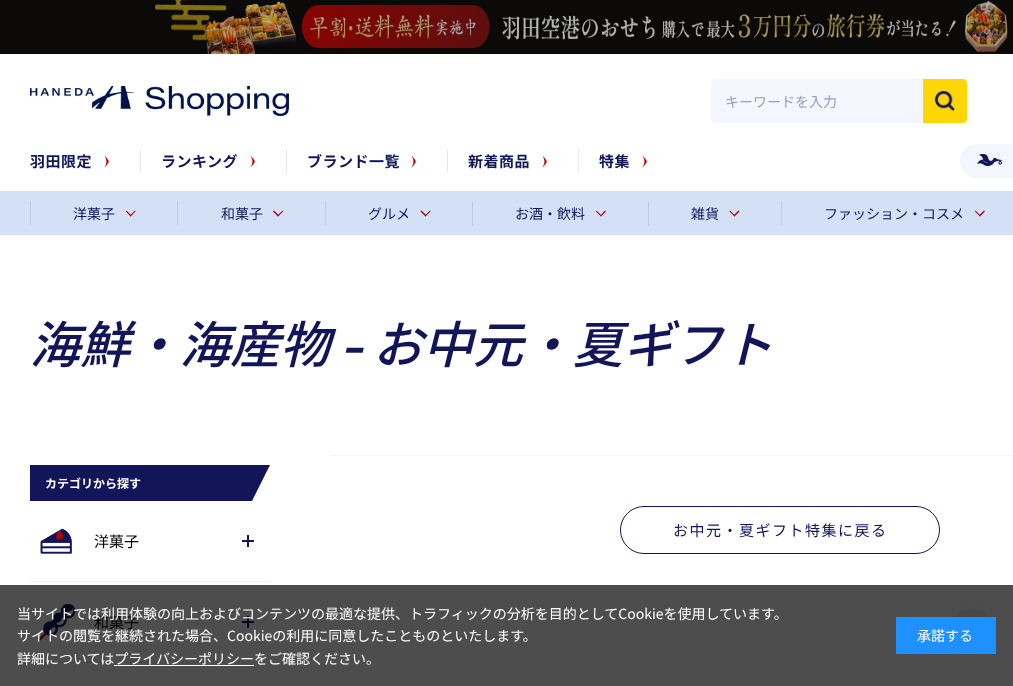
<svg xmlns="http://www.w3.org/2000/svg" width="1013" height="686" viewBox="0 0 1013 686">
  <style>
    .t1 { font: 14px Noto Sans JP; fill: #999dbb; }
    .t2 { font: bold 15px Noto Sans JP; letter-spacing: 0.5px; fill: #121659; }
    .t3 { font: 14px Noto Sans JP; fill: #121659; }
    .t4 { font: italic 500 50px Noto Sans JP; fill: #121659; }
    .t5 { font: italic 500 50px Outfit; fill: #121659; }
    .t6 { font: bold 12px Noto Sans JP; fill: #fff; }
    .t7 { font: 15px Noto Sans JP; fill: #000; }
    .t8 { font: 15px Noto Sans JP; letter-spacing: 1.5px; fill: #121659; }
    .t9 { font: 14px Noto Sans JP; fill: #fff; }
  </style>
  <defs>
    <clipPath id="clip1"><rect x="30" y="465" width="240" height="36"/></clipPath>
  </defs>
  <rect width="100%" height="100%" fill="#fff"/>
  <rect x="0" y="585" width="1013" height="101" fill="#4d4d4d"/>
  <rect x="0" y="0" width="1013" height="54" fill="#0c0a08"/>
  <image x="152" y="0" width="856" height="54" href="images/1.png"/>
  <image x="30" y="86" width="259" height="30" href="images/2.png"/>
  <rect x="711" y="79" width="256" height="44" rx="4" fill="#f3f7fd"/>
  <text x="725" y="107" class="t1">キーワードを入力</text>
  <path d="M923 79H963C965 79 967 81 967 83V119C967 121 965 123 963 123H923Z" fill="#fdd705"/>
  <image x="935" y="91" width="20" height="20" href="images/3.png"/>
  <rect x="140" y="149" width="1" height="24" fill="#e7e8ee"/>
  <text x="30" y="167" class="t2">羽田限定</text>
  <image x="104" y="155" width="5" height="13" href="images/4.png"/>
  <rect x="286" y="149" width="1" height="24" fill="#e7e8ee"/>
  <text x="161" y="167" class="t2">ランキング</text>
  <image x="250" y="155" width="5" height="13" href="images/4.png"/>
  <rect x="447" y="149" width="1" height="24" fill="#e7e8ee"/>
  <text x="307" y="167" class="t2">ブランド一覧</text>
  <image x="411" y="155" width="5" height="13" href="images/4.png"/>
  <rect x="578" y="149" width="1" height="24" fill="#e7e8ee"/>
  <text x="468" y="167" class="t2">新着商品</text>
  <image x="542" y="155" width="5" height="13" href="images/4.png"/>
  <text x="599" y="167" class="t2">特集</text>
  <image x="642" y="155" width="5" height="13" href="images/4.png"/>
  <rect x="960" y="144" width="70" height="34" rx="17" fill="#f3f7fd"/>
  <image x="977" y="154" width="26" height="12" href="images/5.png"/>
  <rect x="0" y="191" width="1013" height="44" fill="#d3e0f5"/>
  <rect x="30" y="201" width="1" height="24" fill="#c0cce5"/>
  <text x="73" y="219" class="t3">洋菓子</text>
  <path d="M135 210.5L135.5 211.5L130.5 216.5L130 215.5Z" fill="#b40000"/>
  <path d="M126.5 210.5L131.5 215.5L130.5 216.5L126 211.5Z" fill="#b40000"/>
  <rect x="177" y="201" width="1" height="24" fill="#c0cce5"/>
  <text x="221" y="219" class="t3">和菓子</text>
  <path d="M282.5 210.5L283 211.5L278 216.5L277.5 215.5Z" fill="#b40000"/>
  <path d="M274 210.5L279 215.5L278 216.5L273 211.5Z" fill="#b40000"/>
  <rect x="325" y="201" width="1" height="24" fill="#c0cce5"/>
  <text x="368" y="219" class="t3">グルメ</text>
  <path d="M430 210.5L430.5 211.5L425.5 216.5L425 215.5Z" fill="#b40000"/>
  <path d="M421.5 210.5L426.5 215.5L425.5 216.5L420.5 211.5Z" fill="#b40000"/>
  <rect x="472" y="201" width="1" height="24" fill="#c0cce5"/>
  <text x="515" y="219" class="t3">お酒・飲料</text>
  <path d="M605 210.5L606 211.5L601 216.5L600.5 215.5Z" fill="#b40000"/>
  <path d="M596.5 210.5L601.5 215.5L601 216.5L596 211.5Z" fill="#b40000"/>
  <rect x="648" y="201" width="1" height="24" fill="#c0cce5"/>
  <text x="691" y="219" class="t3">雑貨</text>
  <path d="M738.5 210.5L739.5 211.5L734.5 216.5L733.5 215.5Z" fill="#b40000"/>
  <path d="M730 210.5L735 215.5L734.5 216.5L729.5 211.5Z" fill="#b40000"/>
  <rect x="781" y="201" width="1" height="24" fill="#c0cce5"/>
  <text x="824" y="219" class="t3">ファッション・コスメ</text>
  <path d="M984 210.5L985 211.5L980 216.5L979 215.5Z" fill="#b40000"/>
  <path d="M975.5 210.5L980.5 215.5L980 216.5L975 211.5Z" fill="#b40000"/>
  <text x="30" y="363" class="t4">海鮮・海産物</text>
  <text x="340" y="363" class="t5">-</text>
  <text x="373" y="363" class="t4">お中元・夏ギフト</text>
  <rect x="30" y="465" width="240" height="36" fill="#121659"/>
  <text x="45" y="488" class="t6">カテゴリから探す</text>
  <g clip-path="url(#clip1)">
    <path d="M270 505H250L270 465Z" fill="#fff"/>
  </g>
  <rect x="30" y="581" width="240" height="1" fill="#f1f1f6"/>
  <image x="40" y="528" width="32" height="26" href="images/6.png"/>
  <text x="94" y="547" class="t7">洋菓子</text>
  <rect x="242" y="540" width="12" height="2" fill="#121659"/>
  <rect x="247" y="535" width="2" height="12" fill="#121659"/>
  <rect x="30" y="662" width="240" height="1" fill="#48484a"/>
  <image x="38" y="603" width="38" height="39" href="images/7.png"/>
  <text x="94" y="628" class="t7">和菓子</text>
  <rect x="242" y="621" width="12" height="2" fill="#05071b"/>
  <rect x="247" y="616" width="2" height="12" fill="#05071b"/>
  <rect x="330" y="455" width="683" height="1" fill="#f6f6f6"/>
  <rect x="620.5" y="506.5" width="319" height="47" rx="23.5" fill="none" stroke="#121659"/>
  <text x="673" y="536" class="t8">お中元・夏ギフト特集に戻る</text>
  <circle cx="972" cy="631" r="25" fill="#48484a"/>
  <circle cx="972" cy="631" r="23.5" fill="none" stroke="#4d4d4dcc" stroke-width="3"/>
  <text x="17" y="619" class="t9">当サイトでは利用体験の向上およびコンテンツの最適な提供、トラフィックの分析を目的としてCookieを使用しています。</text>
  <text x="17" y="641" class="t9">サイトの閲覧を継続された場合、Cookieの利用に同意したことものといたします。</text>
  <text x="17" y="664" class="t9">詳細についてはプライバシーポリシーをご確認ください。</text>
  <rect x="114" y="665" width="140" height="1" fill="#fff"/>
  <rect x="896" y="617" width="100" height="37" fill="#1e90ff"/>
  <text x="917" y="641" class="t9">承諾する</text>
</svg>
